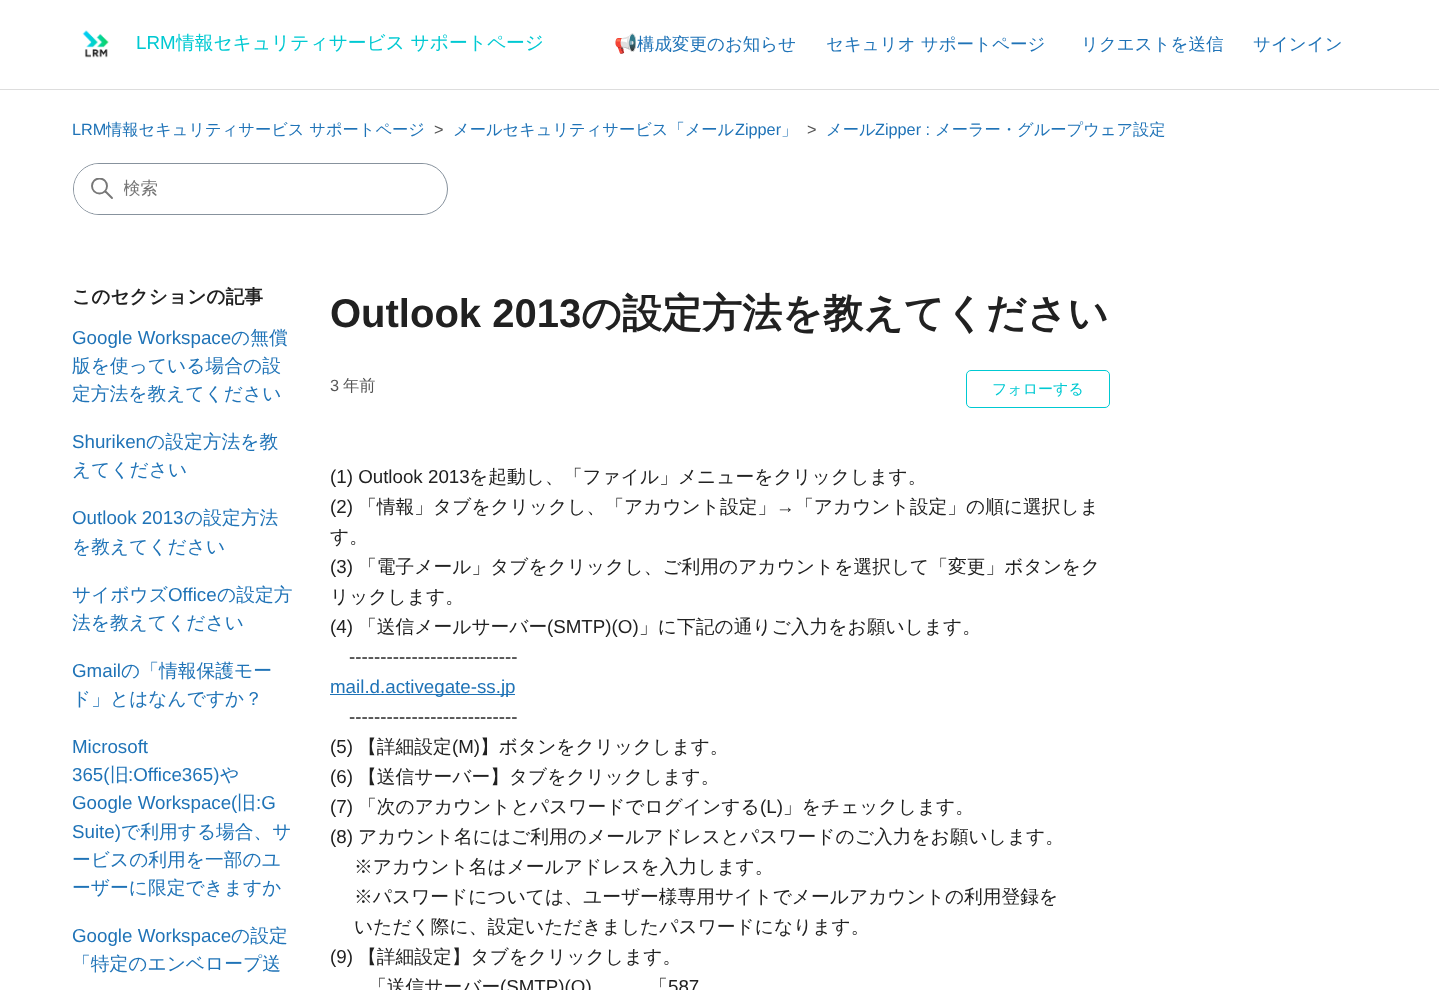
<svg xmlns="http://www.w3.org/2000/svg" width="1439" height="990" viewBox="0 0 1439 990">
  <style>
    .t1 { font: 18.75px Liberation Sans; fill: #00c9d2; }
    .t2 { font: 500 18.75px WenQuanYi Zen Hei; fill: #00c9d2; }
    .t3 { font: 18.75px Noto Color Emoji; fill: #212121; }
    .t4 { font: 500 17.5px WenQuanYi Zen Hei; fill: #1f73b7; }
    .t5 { font: 16.25px Liberation Sans; fill: #1f73b7; }
    .t6 { font: 500 16.25px WenQuanYi Zen Hei; fill: #1f73b7; }
    .t7 { font: 16.25px Liberation Sans; fill: #545454; }
    .t8 { font: 500 17.5px WenQuanYi Zen Hei; fill: #757575; }
    .t9 { font: bold 18.75px WenQuanYi Zen Hei; fill: #212121; }
    .t10 { font: 18.75px Liberation Sans; fill: #1f73b7; }
    .t11 { font: 500 18.75px WenQuanYi Zen Hei; fill: #1f73b7; }
    .t12 { font: bold 40px Liberation Sans; fill: #212121; }
    .t13 { font: bold 40px WenQuanYi Zen Hei; fill: #212121; }
    .t14 { font: 500 16.25px WenQuanYi Zen Hei; fill: #545454; }
    .t15 { font: 500 15px WenQuanYi Zen Hei; fill: #00c9d2; }
    .t16 { font: 18.75px Liberation Sans; fill: #212121; }
    .t17 { font: 500 18.75px WenQuanYi Zen Hei; fill: #212121; }
  </style>
  <defs>
    <clipPath id="clip1"><rect x="91" y="178" width="23" height="22"/></clipPath>
    <clipPath id="clip2"><rect x="124" y="179" width="292" height="22"/></clipPath>
  </defs>
  <rect width="100%" height="100%" fill="#fff"/>
  <image x="82" y="30" width="27" height="28" href="images/1.png"/>
  <text x="136" y="49" class="t1">LRM</text>
  <text x="176" y="49" class="t2">情報セキュリティサービス サポートページ</text>
  <text x="614" y="50" class="t3">📢</text>
  <text x="637" y="50" class="t4">構成変更のお知らせ</text>
  <text x="826" y="50" class="t4">セキュリオ サポートページ</text>
  <text x="1081" y="50" class="t4">リクエストを送信</text>
  <text x="1253" y="50" class="t4">サインイン</text>
  <rect x="0" y="89" width="1439" height="1" fill="#ddd"/>
  <text x="72" y="135" class="t5">LRM</text>
  <text x="106" y="135" class="t6">情報セキュリティサービス サポートページ</text>
  <text x="434" y="135" class="t7">&gt;</text>
  <text x="453" y="135" class="t6">メールセキュリティサービス「メール</text>
  <text x="735" y="135" class="t5">Zipper</text>
  <text x="781" y="135" class="t6">」</text>
  <text x="807" y="135" class="t7">&gt;</text>
  <text x="826" y="135" class="t6">メール</text>
  <text x="875" y="135" class="t5">Zipper :</text>
  <text x="935" y="135" class="t6">メーラー・グループウェア設定</text>
  <rect x="73.5" y="163.5" width="374" height="51" rx="25.5" fill="none" stroke="#87929d"/>
  <rect x="74" y="164" width="372" height="50" rx="25" fill="#fff"/>
  <g clip-path="url(#clip1)">
    <circle cx="99.5" cy="186" r="7.5" fill="none" stroke="#777" stroke-width="1.9"/>
  </g>
  <path d="M112 198L105.5 191.5" fill="none" stroke="#777" stroke-width="1.9" stroke-linecap="round"/>
  <g clip-path="url(#clip2)">
    <text x="123" y="194" class="t8">検索</text>
  </g>
  <text x="72" y="303" class="t9">このセクションの記事</text>
  <text x="72" y="344" class="t10">Google Workspace</text>
  <text x="231" y="344" class="t11">の無償</text>
  <text x="72" y="372" class="t11">版を使っている場合の設</text>
  <text x="72" y="400" class="t11">定方法を教えてください</text>
  <text x="72" y="448" class="t10">Shuriken</text>
  <text x="146" y="448" class="t11">の設定方法を教</text>
  <text x="72" y="476" class="t11">えてください</text>
  <text x="72" y="524" class="t10">Outlook 2013</text>
  <text x="184" y="524" class="t11">の設定方法</text>
  <text x="72" y="553" class="t11">を教えてください</text>
  <text x="72" y="601" class="t11">サイボウズ</text>
  <text x="168" y="601" class="t10">Office</text>
  <text x="217" y="601" class="t11">の設定方</text>
  <text x="72" y="629" class="t11">法を教えてください</text>
  <text x="72" y="677" class="t10">Gmail</text>
  <text x="121" y="677" class="t11">の「情報保護モー</text>
  <text x="72" y="705" class="t11">ド」とはなんですか？</text>
  <text x="72" y="753" class="t10">Microsoft</text>
  <text x="72" y="781" class="t10">365(</text>
  <text x="110" y="781" class="t11">旧</text>
  <text x="128" y="781" class="t10">:Office365)</text>
  <text x="220" y="781" class="t11">や</text>
  <text x="72" y="809" class="t10">Google Workspace(</text>
  <text x="237" y="809" class="t11">旧</text>
  <text x="256" y="809" class="t10">:G</text>
  <text x="72" y="838" class="t10">Suite)</text>
  <text x="121" y="838" class="t11">で利用する場合、サ</text>
  <text x="72" y="866" class="t11">ービスの利用を一部のユ</text>
  <text x="72" y="894" class="t11">ーザーに限定できますか</text>
  <text x="72" y="942" class="t10">Google Workspace</text>
  <text x="231" y="942" class="t11">の設定</text>
  <text x="72" y="970" class="t11">「特定のエンベロープ送</text>
  <text x="330" y="327" class="t12">Outlook 2013</text>
  <text x="581" y="327" class="t13">の設定方法を教えてください</text>
  <text x="330" y="391" class="t7">3</text>
  <text x="343" y="391" class="t14">年前</text>
  <rect x="966.5" y="370.5" width="143" height="37" rx="4.5" fill="none" stroke="#00c9d2"/>
  <text x="992" y="394" class="t15">フォローする</text>
  <text x="330" y="483" class="t16">(1) Outlook 2013</text>
  <text x="469" y="483" class="t17">を起動し、「ファイル」メニューをクリックします。</text>
  <text x="330" y="513" class="t16">(2)</text>
  <text x="358" y="513" class="t17">「情報」タブをクリックし、「アカウント設定」</text>
  <text x="776" y="513" class="t16">→</text>
  <text x="795" y="513" class="t17">「アカウント設定」の順に選択しま</text>
  <text x="330" y="543" class="t17">す。</text>
  <text x="330" y="573" class="t16">(3)</text>
  <text x="358" y="573" class="t17">「電子メール」タブをクリックし、ご利用のアカウントを選択して「変更」ボタンをク</text>
  <text x="330" y="603" class="t17">リックします。</text>
  <text x="330" y="633" class="t16">(4)</text>
  <text x="358" y="633" class="t17">「送信メールサーバー</text>
  <text x="547" y="633" class="t16">(SMTP)(O)</text>
  <text x="639" y="633" class="t17">」に下記の通りご入力をお願いします。</text>
  <text x="349" y="663" class="t16">---------------------------</text>
  <rect x="330" y="694" width="185" height="1" fill="#1f73b7"/>
  <text x="330" y="693" class="t10">mail.d.activegate-ss.jp</text>
  <text x="349" y="723" class="t16">---------------------------</text>
  <text x="330" y="753" class="t16">(5)</text>
  <text x="358" y="753" class="t17">【詳細設定</text>
  <text x="452" y="753" class="t16">(M)</text>
  <text x="480" y="753" class="t17">】ボタンをクリックします。</text>
  <text x="330" y="783" class="t16">(6)</text>
  <text x="358" y="783" class="t17">【送信サーバー】タブをクリックします。</text>
  <text x="330" y="813" class="t16">(7)</text>
  <text x="358" y="813" class="t17">「次のアカウントとパスワードでログインする</text>
  <text x="760" y="813" class="t16">(L)</text>
  <text x="783" y="813" class="t17">」をチェックします。</text>
  <text x="330" y="843" class="t16">(8)</text>
  <text x="358" y="843" class="t17">アカウント名にはご利用のメールアドレスとパスワードのご入力をお願いします。</text>
  <text x="354" y="873" class="t17">※アカウント名はメールアドレスを入力します。</text>
  <text x="354" y="903" class="t17">※パスワードについては、ユーザー様専用サイトでメールアカウントの利用登録を</text>
  <text x="354" y="933" class="t17">いただく際に、設定いただきましたパスワードになります。</text>
  <text x="330" y="963" class="t16">(9)</text>
  <text x="358" y="963" class="t17">【詳細設定】タブをクリックします。</text>
  <text x="368" y="993" class="t17">「送信サーバー</text>
  <text x="500" y="993" class="t16">(SMTP)(O)</text>
  <text x="649" y="993" class="t17">「</text>
  <text x="668" y="993" class="t16">587</text>
</svg>
